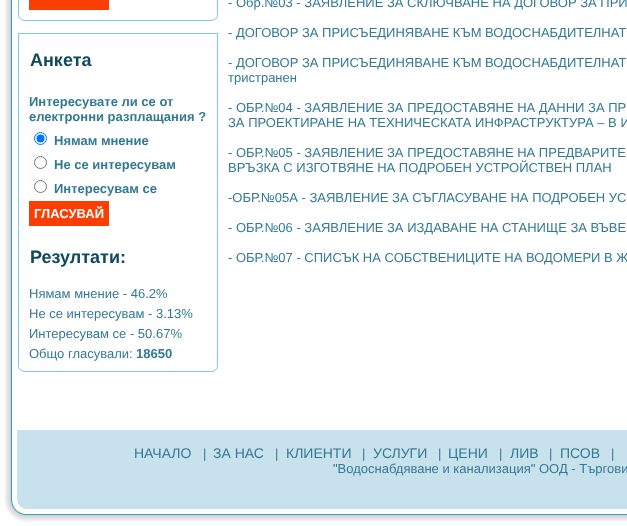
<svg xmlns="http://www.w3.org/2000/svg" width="627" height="526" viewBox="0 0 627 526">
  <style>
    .t1 { font: bold 18px Liberation Sans; fill: #11485b; }
    .t2 { font: bold 13px Liberation Sans; fill: #337993; }
    .t3 { font: bold 13px Liberation Sans; fill: #fff; }
    .t4 { font: 13px Liberation Sans; fill: #337993; }
    .t5 { font: 14px Liberation Sans; fill: #337993; }
  </style>
  <rect width="100%" height="100%" fill="#fff"/>
  <image x="4" y="0" width="8" height="430" href="images/1.png"/>
  <rect x="217" y="0" width="1" height="15" fill="#7fcae6"/>
  <rect x="18" y="0" width="1" height="15" fill="#7fcae6"/>
  <rect x="29" y="0" width="80" height="10" fill="#fc3e02"/>
  <image x="18" y="15" width="200" height="6" href="images/2.png"/>
  <rect x="18" y="33" width="200" height="1" fill="#7fcae6"/>
  <rect x="217" y="33" width="1" height="333" fill="#7fcae6"/>
  <rect x="18" y="33" width="1" height="333" fill="#7fcae6"/>
  <text x="30" y="66" class="t1">Анкета</text>
  <text x="29" y="106" class="t2">Интересувате ли се от</text>
  <text x="29" y="121" class="t2">електронни разплащания ?</text>
  <circle cx="40.5" cy="138.5" r="6" fill="none" stroke="#0075ff"/>
  <circle cx="40.5" cy="138.5" r="4" fill="#0075ff"/>
  <text x="54" y="145" class="t2">Нямам мнение</text>
  <circle cx="40.5" cy="162.5" r="6" fill="none" stroke="#767676"/>
  <text x="54" y="169" class="t2">Не се интересувам</text>
  <circle cx="40.5" cy="186.5" r="6" fill="none" stroke="#767676"/>
  <text x="54" y="193" class="t2">Интересувам се</text>
  <rect x="29" y="201" width="80" height="25" fill="#fc3e02"/>
  <text x="34" y="218" class="t3">ГЛАСУВАЙ</text>
  <text x="30" y="263" class="t1">Резултати:</text>
  <text x="29" y="298" class="t4">Нямам мнение - 46.2%</text>
  <text x="29" y="318" class="t4">Не се интересувам - 3.13%</text>
  <text x="29" y="338" class="t4">Интересувам се - 50.67%</text>
  <text x="29" y="358" class="t4">Общо гласували:</text>
  <text x="136" y="358" class="t2">18650</text>
  <image x="18" y="366" width="200" height="6" href="images/2.png"/>
  <text x="228" y="7" class="t4">- Обр.№03 - ЗАЯВЛЕНИЕ ЗА СКЛЮЧВАНЕ НА ДОГОВОР ЗА ПРИ</text>
  <text x="228" y="37" class="t4">- ДОГОВОР ЗА ПРИСЪЕДИНЯВАНЕ КЪМ ВОДОСНАБДИТЕЛНАТ</text>
  <text x="228" y="67" class="t4">- ДОГОВОР ЗА ПРИСЪЕДИНЯВАНЕ КЪМ ВОДОСНАБДИТЕЛНАТ</text>
  <text x="228" y="82" class="t4">тристранен</text>
  <text x="228" y="112" class="t4">- ОБР.№04 - ЗАЯВЛЕНИЕ ЗА ПРЕДОСТАВЯНЕ НА ДАННИ ЗА ПР</text>
  <text x="228" y="127" class="t4">ЗА ПРОЕКТИРАНЕ НА ТЕХНИЧЕСКАТА ИНФРАСТРУКТУРА – В И</text>
  <text x="228" y="157" class="t4">- ОБР.№05 - ЗАЯВЛЕНИЕ ЗА ПРЕДОСТАВЯНЕ НА ПРЕДВАРИТЕ</text>
  <text x="228" y="172" class="t4">ВРЪЗКА С ИЗГОТВЯНЕ НА ПОДРОБЕН УСТРОЙСТВЕН ПЛАН</text>
  <text x="228" y="202" class="t4">-ОБР.№05А - ЗАЯВЛЕНИЕ ЗА СЪГЛАСУВАНЕ НА ПОДРОБЕН УС</text>
  <text x="228" y="232" class="t4">- ОБР.№06 - ЗАЯВЛЕНИЕ ЗА ИЗДАВАНЕ НА СТАНИЩЕ ЗА ВЪВЕ</text>
  <text x="228" y="262" class="t4">- ОБР.№07 - СПИСЪК НА СОБСТВЕНИЦИТЕ НА ВОДОМЕРИ В Ж</text>
  <image x="4" y="430" width="623" height="65" href="images/3.png"/>
  <text x="134" y="458" class="t5">НАЧАЛО</text>
  <text x="203" y="458" class="t4">|</text>
  <text x="213" y="458" class="t5">ЗА НАС</text>
  <text x="275" y="458" class="t4">|</text>
  <text x="286" y="458" class="t5">КЛИЕНТИ</text>
  <text x="362" y="458" class="t4">|</text>
  <text x="373" y="458" class="t5">УСЛУГИ</text>
  <text x="438" y="458" class="t4">|</text>
  <text x="448" y="458" class="t5">ЦЕНИ</text>
  <text x="499" y="458" class="t4">|</text>
  <text x="510" y="458" class="t5">ЛИВ</text>
  <text x="549" y="458" class="t4">|</text>
  <text x="560" y="458" class="t5">ПСОВ</text>
  <text x="611" y="458" class="t4">|</text>
  <text x="333" y="473" class="t4">"Водоснабдяване и канализация" ООД - Търгови</text>
  <image x="4" y="495" width="623" height="27" href="images/4.png"/>
</svg>
